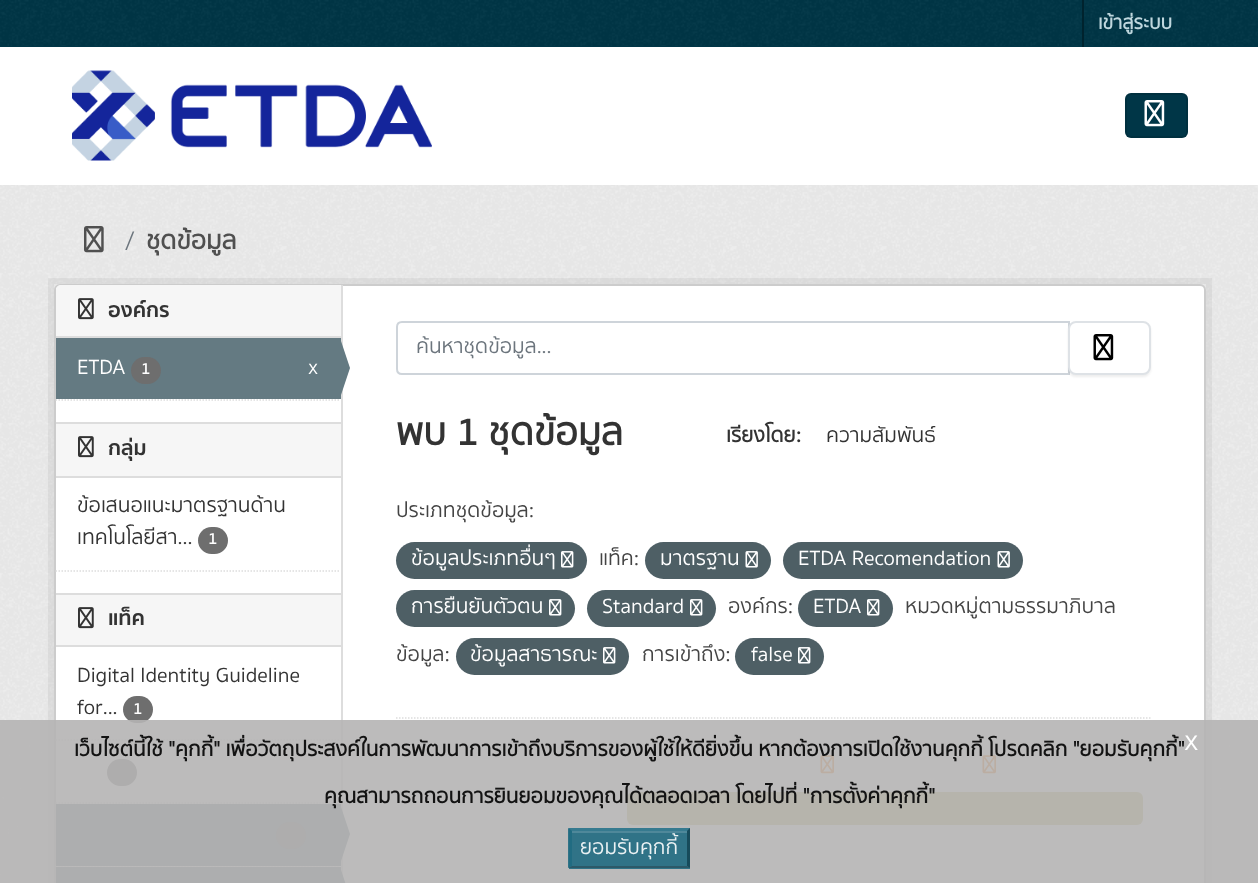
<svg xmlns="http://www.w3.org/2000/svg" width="1258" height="883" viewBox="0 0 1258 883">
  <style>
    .t1 { font: bold 19.5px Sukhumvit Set; fill: #bfd7de; }
    .t2 { font: 26px Sukhumvit Set; fill: #6c757d; }
    .t3 { font: bold 26px Sukhumvit Set; fill: #505050; }
    .t4 { font: bold 21px 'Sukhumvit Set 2'; fill: #333; }
    .t5 { font: 21px Sukhumvit Set; fill: #fff; }
    .t6 { font: bold 16px Sukhumvit Set; fill: #fff; }
    .t7 { font: 21px Sukhumvit Set; fill: #333; }
    .t8 { font: 21px Sukhumvit Set; fill: #6c757d; }
    .t9 { font: bold 38.75px Sukhumvit Set; fill: #333; }
    .t10 { font: bold 21px Sukhumvit Set; fill: #333; }
    .t11 { font: 21px Sukhumvit Set; fill: #444; }
    .t12 { font: bold 21px Sukhumvit Set; fill: #131313; }
    .t13 { font: 30px Sukhumvit Set; fill: #fff; }
    .t14 { font: 21px Sukhumvit Set; fill: #eaf1f3; }
  </style>
  <defs>
    <clipPath id="clip1"><rect x="416" y="333" width="634" height="30"/></clipPath>
  </defs>
  <rect width="100%" height="100%" fill="#fff"/>
  <rect x="0" y="0" width="1258" height="47" fill="#003647"/>
  <image x="0" y="0" width="1258" height="46" href="images/1.png"/>
  <rect x="1082" y="0" width="2" height="47" fill="#00232e"/>
  <text x="1098" y="29" class="t1">เข้าสู่ระบบ</text>
  <image x="72" y="70" width="360" height="91" href="images/2.png"/>
  <rect x="1125" y="93" width="63" height="45" rx="6" fill="#003647"/>
  <rect x="1126" y="94" width="61" height="43" rx="5" fill="none" stroke="#0000001a" stroke-width="2"/>
  <image x="1144" y="100" width="21" height="27" href="images/3.png"/>
  <rect x="0" y="185" width="1258" height="698" fill="#eee"/>
  <image x="0" y="185" width="1258" height="698" href="images/4.png"/>
  <image x="84" y="226" width="20" height="27" href="images/5.png"/>
  <text x="125" y="249" class="t2">/</text>
  <text x="146" y="249" class="t3">ชุดข้อมูล</text>
  <rect x="51" y="281" width="1158" height="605" fill="none" stroke="#0000000d" stroke-width="6"/>
  <rect x="55" y="285" width="1150" height="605" rx="5" fill="#fff" stroke="#ccc" stroke-width="2"/>
  <path d="M61 285H341V338H56V290C56 287 58 285 61 285Z" fill="#f6f6f6"/>
  <rect x="56" y="336" width="285" height="2" fill="#ddd"/>
  <image x="78" y="298" width="16" height="22" href="images/6.png"/>
  <text x="108" y="317" class="t4">องค์กร</text>
  <rect x="56" y="338" width="285" height="61" fill="#647a82"/>
  <text x="77" y="374" class="t5">ETDA</text>
  <rect x="131" y="357" width="30" height="27" rx="13.5" fill="#6e6e6e"/>
  <text x="141" y="374" class="t6">1</text>
  <text x="308" y="374" class="t5">x</text>
  <rect x="341" y="285" width="2" height="598" fill="#ddd"/>
  <path d="M340 398V338L350 368Z" fill="#647a82"/>
  <path d="M55.5 400H340.5" fill="none" stroke="#ddd" stroke-width="1.5" stroke-dasharray="1.5 1.5"/>
  <rect x="56" y="424" width="285" height="52" fill="#f6f6f6"/>
  <rect x="56" y="422" width="285" height="2" fill="#ddd"/>
  <rect x="56" y="476" width="285" height="2" fill="#ddd"/>
  <image x="78" y="436" width="16" height="22" href="images/6.png"/>
  <text x="108" y="455" class="t4">กลุ่ม</text>
  <text x="77" y="512" class="t7">ข้อเสนอแนะมาตรฐานด้าน</text>
  <text x="77" y="544" class="t7">เทคโนโลยีสา...</text>
  <rect x="198" y="527" width="30" height="27" rx="13.5" fill="#6e6e6e"/>
  <text x="208" y="544" class="t6">1</text>
  <path d="M55.5 571H340.5" fill="none" stroke="#ddd" stroke-width="1.5" stroke-dasharray="1.5 1.5"/>
  <rect x="56" y="595" width="285" height="50" fill="#f6f6f6"/>
  <rect x="56" y="593" width="285" height="2" fill="#ddd"/>
  <rect x="56" y="645" width="285" height="2" fill="#ddd"/>
  <image x="78" y="607" width="16" height="22" href="images/6.png"/>
  <text x="108" y="625" class="t4">แท็ค</text>
  <path d="M55.5 740H340.5" fill="none" stroke="#ddd" stroke-width="1.5" stroke-dasharray="1.5 1.5"/>
  <text x="77" y="682" class="t7">Digital Identity Guideline</text>
  <text x="77" y="714" class="t7">for...</text>
  <rect x="123" y="696" width="30" height="27" rx="13.5" fill="#6e6e6e"/>
  <text x="133" y="714" class="t6">1</text>
  <path d="M55.5 803H340.5" fill="none" stroke="#ddd" stroke-width="1.5" stroke-dasharray="1.5 1.5"/>
  <rect x="107" y="759" width="30" height="27" rx="13.5" fill="#6e6e6e"/>
  <rect x="56" y="866" width="285" height="1" fill="#f6f6f6"/>
  <path d="M55.5 866H340.5" fill="none" stroke="#ddd" stroke-width="1.5" stroke-dasharray="1.5 1.5"/>
  <rect x="56" y="804" width="285" height="62" fill="#647a82"/>
  <rect x="276" y="822" width="30" height="27" rx="13.5" fill="#6e6e6e"/>
  <path d="M340 864V804L350 834Z" fill="#647a82"/>
  <rect x="56" y="867" width="285" height="16" fill="#647a82"/>
  <path d="M340 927V867L350 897Z" fill="#647a82"/>
  <path d="M396 718H1150.5" fill="none" stroke="#ddd" stroke-width="1.5" stroke-dasharray="1.5 1.5"/>
  <path d="M402 322H1069V374H402C399 374 397 372 397 369V327C397 324 399 322 402 322Z" fill="none" stroke="#ced4da" stroke-width="2"/>
  <g clip-path="url(#clip1)">
    <text x="416" y="353" class="t8">ค้นหาชุดข้อมูล...</text>
  </g>
  <rect x="1068" y="323" width="83" height="54" rx="8" fill="#00000012" filter="blur(1px)"/>
  <rect x="1069" y="322" width="81" height="52" rx="7" fill="#fff" stroke="#dee2e6" stroke-width="2"/>
  <image x="1093" y="334" width="21" height="27" href="images/7.png"/>
  <text x="396" y="445" class="t9">พบ 1 ชุดข้อมูล</text>
  <text x="726" y="442" class="t10">เรียงโดย:</text>
  <text x="826" y="442" class="t7">ความสัมพันธ์</text>
  <text x="396" y="517" class="t11">ประเภทชุดข้อมูล:</text>
  <rect x="396" y="542" width="191" height="37" rx="18.5" fill="#4e5f65"/>
  <text x="411" y="565" class="t5">ข้อมูลประเภทอื่นๆ</text>
  <image x="561" y="551" width="13" height="17" href="images/8.png"/>
  <text x="599" y="565" class="t11">แท็ค:</text>
  <rect x="645" y="542" width="126" height="37" rx="18.5" fill="#4e5f65"/>
  <text x="660" y="565" class="t5">มาตรฐาน</text>
  <image x="745" y="551" width="13" height="17" href="images/9.png"/>
  <rect x="783" y="542" width="240" height="37" rx="18.5" fill="#4e5f65"/>
  <text x="798" y="565" class="t5">ETDA Recomendation</text>
  <image x="997" y="551" width="13" height="17" href="images/9.png"/>
  <rect x="396" y="590" width="179" height="37" rx="18.5" fill="#4e5f65"/>
  <text x="411" y="613" class="t5">การยืนยันตัวตน</text>
  <image x="549" y="599" width="13" height="17" href="images/8.png"/>
  <rect x="587" y="590" width="129" height="37" rx="18.5" fill="#4e5f65"/>
  <text x="602" y="613" class="t5">Standard</text>
  <image x="690" y="599" width="13" height="17" href="images/8.png"/>
  <text x="728" y="613" class="t11">องค์กร:</text>
  <rect x="798" y="590" width="95" height="37" rx="18.5" fill="#4e5f65"/>
  <text x="813" y="613" class="t5">ETDA</text>
  <image x="867" y="599" width="13" height="17" href="images/8.png"/>
  <text x="905" y="613" class="t11">หมวดหมู่ตามธรรมาภิบาล</text>
  <text x="396" y="661" class="t11">ข้อมูล:</text>
  <rect x="456" y="638" width="173" height="37" rx="18.5" fill="#4e5f65"/>
  <text x="470" y="661" class="t5">ข้อมูลสาธารณะ</text>
  <image x="603" y="647" width="13" height="17" href="images/8.png"/>
  <text x="642" y="661" class="t11">การเข้าถึง:</text>
  <rect x="735" y="638" width="89" height="37" rx="18.5" fill="#4e5f65"/>
  <text x="751" y="661" class="t5">false</text>
  <image x="798" y="647" width="13" height="17" href="images/8.png"/>
  <image x="820" y="755" width="14" height="19" href="images/10.png"/>
  <image x="982" y="755" width="14" height="19" href="images/10.png"/>
  <rect x="627" y="792" width="516" height="33" rx="6" fill="#bdb76b"/>
  <rect x="0" y="720" width="1258" height="163" fill="#b5b4b4e6"/>
  <text x="74" y="756" class="t12">เว็บไซต์นี้ใช้ "คุกกี้" เพื่อวัตถุประสงค์ในการพัฒนาการเข้าถึงบริการของผู้ใช้ให้ดียิ่งขึ้น หากต้องการเปิดใช้งานคุกกี้ โปรดคลิก "ยอมรับคุกกี้"</text>
  <text x="1184" y="750" class="t13">x</text>
  <text x="324" y="803" class="t12">คุณสามารถถอนการยินยอมของคุณได้ตลอดเวลา โดยไปที่ "การตั้งค่าคุกกี้"</text>
  <rect x="569" y="828" width="121" height="41" fill="#206b82e6"/>
  <rect x="572" y="831" width="115" height="2" fill="#4f889a"/>
  <path d="M568 828H690L687 831H572Z" fill="#367a8f"/>
  <path d="M690 828V868L687 866V831Z" fill="#154757e6"/>
  <path d="M690 868H568L572 866H687Z" fill="#2c5968"/>
  <path d="M568 868V828L572 831V866Z" fill="#206b82e6"/>
  <text x="580" y="854" class="t14">ยอมรับคุกกี้</text>
</svg>
